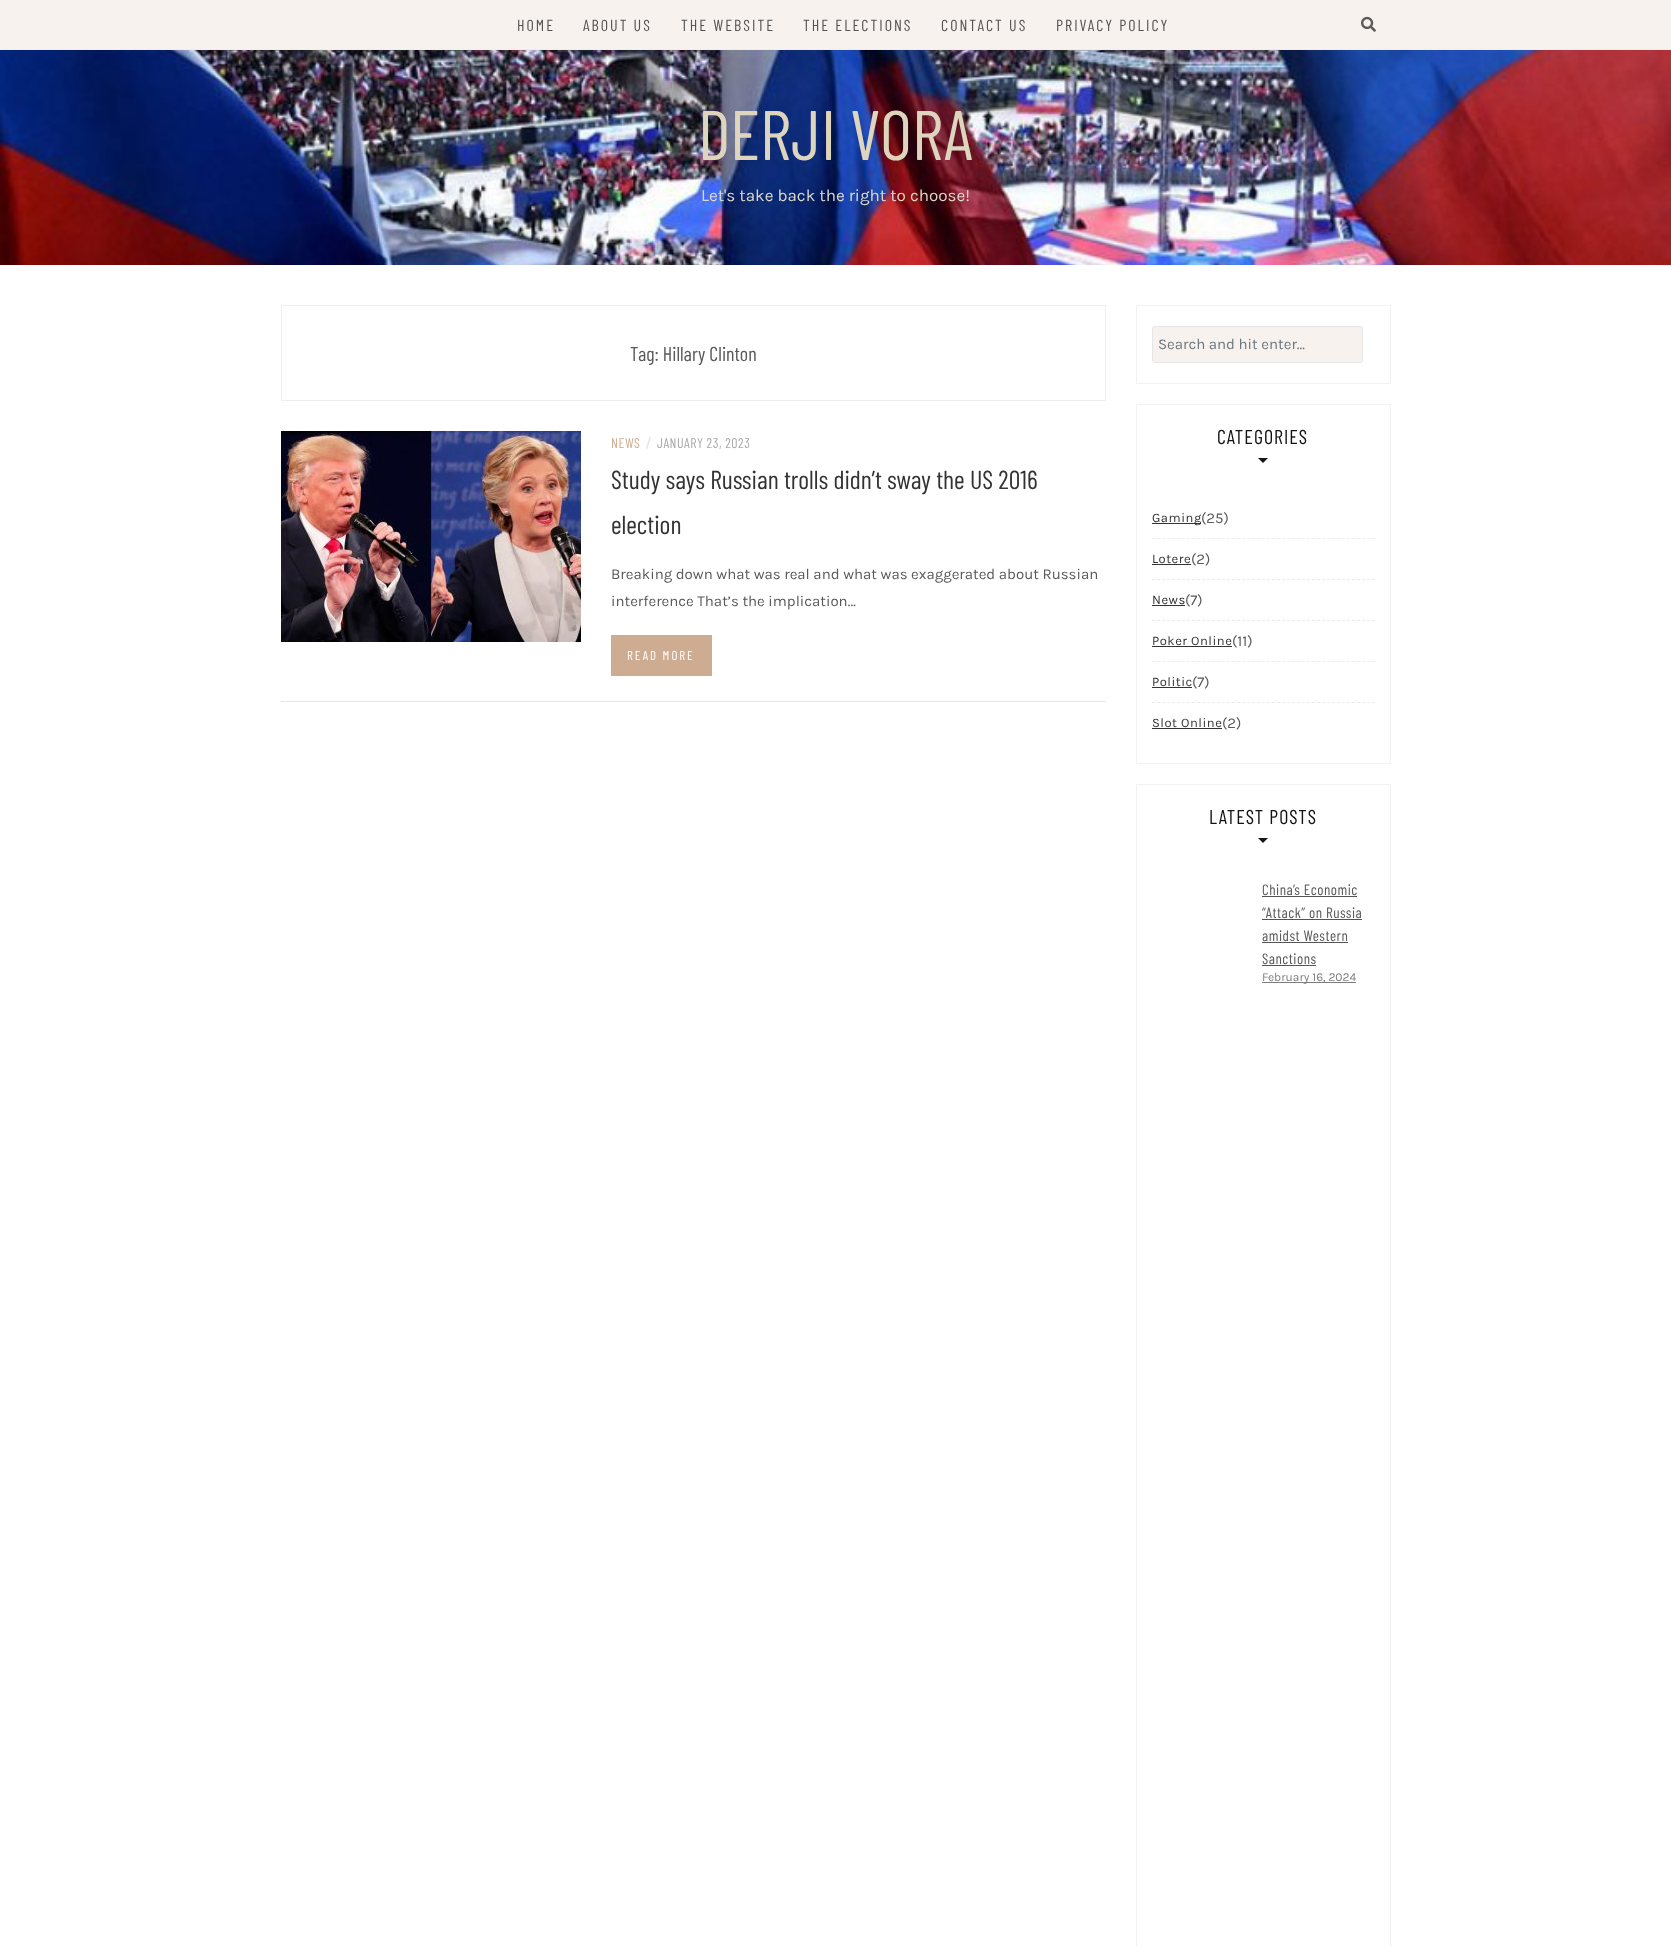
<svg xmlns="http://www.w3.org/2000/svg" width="1671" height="1946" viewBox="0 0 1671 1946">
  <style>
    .t1 { font: 16px Barlow Condensed; letter-spacing: 2px; fill: #535353; }
    .t2 { font: 70px Barlow Condensed; fill: #ddd5be; }
    .t3 { font: 17px Karla; fill: #dddacc; }
    .t4 { font: 20px Barlow Condensed; fill: #595959; }
    .t5 { font: 14px Barlow Condensed; letter-spacing: 0.5px; fill: #ceac92; }
    .t6 { font: 15px Karla; fill: #e1e1e1; }
    .t7 { font: 14px Barlow Condensed; letter-spacing: 0.5px; fill: #aaa; }
    .t8 { font: 26px Barlow Condensed; fill: #333; }
    .t9 { font: 15px Karla; fill: #595959; }
    .t10 { font: 13px Barlow Condensed; letter-spacing: 2px; fill: #fff; }
    .t11 { font: 15px Karla; fill: #6c757d; }
    .t12 { font: 20px Barlow Condensed; letter-spacing: 1px; fill: #131313; }
    .t13 { font: 13px Karla; letter-spacing: 0.5px; fill: #333; }
    .t14 { font: 15px Barlow Condensed; letter-spacing: 0.5px; fill: #595959; }
    .t15 { font: 12px Karla; fill: #7d7d7d; }
  </style>
  <rect width="100%" height="100%" fill="#fff"/>
  <rect x="0" y="0" width="1671" height="49" fill="#f7f2ee"/>
  <rect x="0" y="49" width="1671" height="1" fill="#eee"/>
  <text x="517" y="31" class="t1">HOME</text>
  <text x="583" y="31" class="t1">ABOUT US</text>
  <text x="681" y="31" class="t1">THE WEBSITE</text>
  <text x="803" y="31" class="t1">THE ELECTIONS</text>
  <text x="941" y="31" class="t1">CONTACT US</text>
  <text x="1056" y="31" class="t1">PRIVACY POLICY</text>
  <image x="1361" y="16" width="15" height="16" href="images/1.png"/>
  <image x="0" y="50" width="1671" height="215" href="images/2.png"/>
  <text x="698" y="160" class="t2">DERJI VORA</text>
  <text x="701" y="201" class="t3">Let's take back the right to choose!</text>
  <rect x="281.5" y="305.5" width="824" height="95" fill="none" stroke="#eee"/>
  <text x="630" y="361" class="t4">Tag: Hillary Clinton</text>
  <rect x="281" y="701" width="825" height="1" fill="#e5e5e5"/>
  <image x="281" y="431" width="300" height="211" href="images/3.png"/>
  <text x="611" y="448" class="t5">NEWS</text>
  <text x="645" y="448" class="t6">/</text>
  <text x="657" y="448" class="t7">JANUARY 23, 2023</text>
  <text x="611" y="489" class="t8">Study says Russian trolls didn’t sway the US 2016</text>
  <text x="611" y="534" class="t8">election</text>
  <text x="611" y="579" class="t9">Breaking down what was real and what was exaggerated about Russian</text>
  <text x="611" y="606" class="t9">interference That’s the implication…</text>
  <rect x="611" y="635" width="101" height="41" fill="#ceac92"/>
  <text x="627" y="660" class="t10">READ MORE</text>
  <rect x="1136.5" y="305.5" width="254" height="78" fill="none" stroke="#f2f1f1"/>
  <rect x="1152.5" y="326.5" width="210" height="36" rx="2.5" fill="#f7f2ee" stroke="#e6e6e6"/>
  <text x="1158" y="349" class="t11">Search and hit enter...</text>
  <rect x="1136.5" y="404.5" width="254" height="359" fill="none" stroke="#f2f1f1"/>
  <text x="1217" y="444" class="t12">CATEGORIES</text>
  <path d="M1258 458H1268L1263 463Z" fill="#161616"/>
  <path d="M1152 538.5H1375" fill="none" stroke="#ebebeb" stroke-dasharray="3 2"/>
  <rect x="1152" y="523" width="49" height="1" fill="#333"/>
  <text x="1152" y="522" class="t13">Gaming</text>
  <text x="1201" y="523" class="t9">(25)</text>
  <path d="M1152 579.5H1375" fill="none" stroke="#ebebeb" stroke-dasharray="3 2"/>
  <text x="1152" y="563" class="t13">Lotere</text>
  <rect x="1152" y="564" width="39" height="1" fill="#333"/>
  <text x="1191" y="564" class="t9">(2)</text>
  <path d="M1152 620.5H1375" fill="none" stroke="#ebebeb" stroke-dasharray="3 2"/>
  <text x="1152" y="604" class="t13">News</text>
  <rect x="1152" y="605" width="33" height="1" fill="#333"/>
  <text x="1185" y="605" class="t9">(7)</text>
  <path d="M1152 661.5H1375" fill="none" stroke="#ebebeb" stroke-dasharray="3 2"/>
  <text x="1152" y="645" class="t13">Poker Online</text>
  <rect x="1152" y="646" width="80" height="1" fill="#333"/>
  <text x="1232" y="646" class="t9">(11)</text>
  <path d="M1152 702.5H1375" fill="none" stroke="#ebebeb" stroke-dasharray="3 2"/>
  <text x="1152" y="686" class="t13">Politic</text>
  <rect x="1152" y="687" width="40" height="1" fill="#333"/>
  <text x="1192" y="687" class="t9">(7)</text>
  <text x="1152" y="727" class="t13">Slot Online</text>
  <rect x="1152" y="728" width="70" height="1" fill="#333"/>
  <text x="1222" y="728" class="t9">(2)</text>
  <rect x="1136.5" y="784.5" width="254" height="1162" fill="none" stroke="#f2f1f1"/>
  <text x="1209" y="824" class="t12">LATEST POSTS</text>
  <path d="M1258 838H1268L1263 843Z" fill="#161616"/>
  <text x="1262" y="895" class="t14">China’s Economic</text>
  <rect x="1262" y="896" width="95" height="1" fill="#555"/>
  <text x="1262" y="918" class="t14">“Attack” on Russia</text>
  <rect x="1262" y="919" width="100" height="1" fill="#555"/>
  <text x="1262" y="941" class="t14">amidst Western</text>
  <rect x="1262" y="942" width="86" height="1" fill="#555"/>
  <text x="1262" y="964" class="t14">Sanctions</text>
  <rect x="1262" y="965" width="54" height="1" fill="#555"/>
  <rect x="1262" y="982" width="94" height="1" fill="#7d7d7d"/>
  <text x="1262" y="981" class="t15">February 16, 2024</text>
</svg>
